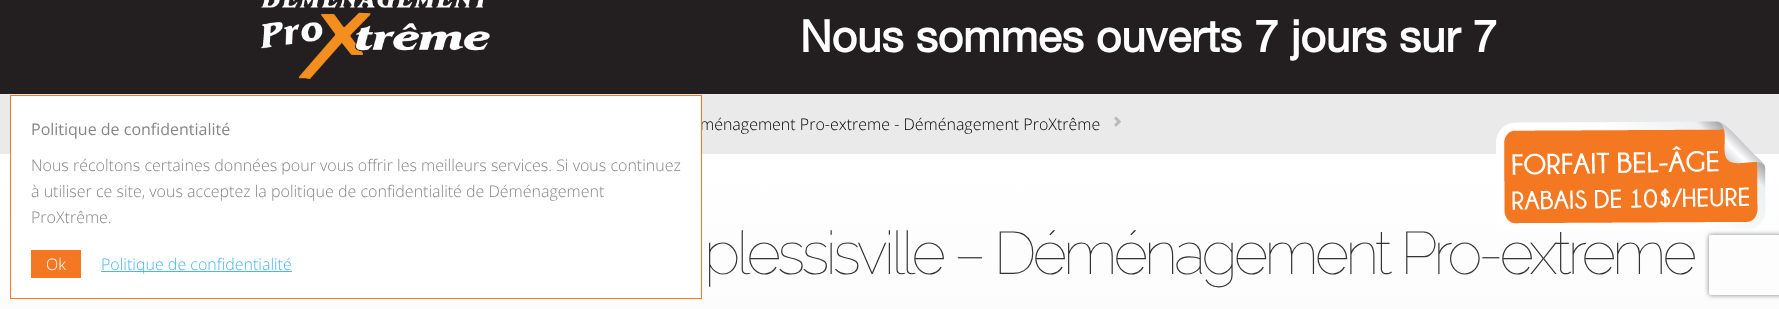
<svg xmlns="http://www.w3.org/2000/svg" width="1779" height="309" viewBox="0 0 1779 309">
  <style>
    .t1 { font: 300 16px Open Sans; fill: #000; }
    .t2 { font: 16px Open Sans; fill: #878787; }
    .t3 { font: 300 16px Open Sans; fill: #878787; }
    .t4 { font: 300 16px Open Sans; fill: #fff; }
    .t5 { font: 300 16px Open Sans; fill: #4bb6f5; }
    .t6 { font: bold 44px Helvetica Neue; fill: #fff; }
    .t7 { font: 100 60px Raleway; letter-spacing: -4px; fill: #333; }
  </style>
  <defs>
    <linearGradient id="g1" gradientUnits="userSpaceOnUse" x1="890" y1="154" x2="890" y2="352"><stop offset="0" stop-color="#fff"/><stop offset="1" stop-color="#fbfbfb"/></linearGradient>
    <clipPath id="clip1"><path d="M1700 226H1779V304H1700ZM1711 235H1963C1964 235 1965 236 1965 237V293C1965 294 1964 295 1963 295H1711C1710 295 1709 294 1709 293V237C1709 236 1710 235 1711 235Z" clip-rule="evenodd"/></clipPath>
  </defs>
  <rect width="100%" height="100%" fill="#231f20"/>
  <rect x="0" y="94" width="1779" height="60" fill="#eaeaea"/>
  <text x="700" y="130" class="t1">ménagement Pro-extreme - Déménagement ProXtrême</text>
  <rect x="0" y="154" width="1779" height="155" fill="url(#g1)"/>
  <rect x="10.5" y="95.5" width="691" height="203" fill="#fff" stroke="#f47721"/>
  <text x="31" y="135" class="t2">Politique de confidentialité</text>
  <text x="31" y="171" class="t3">Nous récoltons certaines données pour vous offrir les meilleurs services. Si vous continuez</text>
  <text x="31" y="197" class="t3">à utiliser ce site, vous acceptez la politique de confidentialité de Déménagement</text>
  <text x="31" y="223" class="t3">ProXtrême.</text>
  <rect x="31" y="250" width="50" height="28" fill="#f47721"/>
  <text x="46" y="270" class="t4">Ok</text>
  <rect x="101" y="271" width="191" height="1" fill="#4bb6f5"/>
  <text x="101" y="270" class="t5">Politique de confidentialité</text>
  <image x="261" y="0" width="229" height="79" href="images/1.png"/>
  <text x="800" y="52" class="t6">Nous sommes ouverts 7 jours sur 7</text>
  <image x="1114" y="116" width="7" height="11" href="images/2.png"/>
  <g clip-path="url(#clip1)">
    <rect x="1709" y="235" width="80" height="60" rx="2" fill="#808080" filter="blur(2.5px)"/>
  </g>
  <image x="1496" y="121" width="270" height="108" href="images/3.png"/>
  <text x="704" y="274" class="t7">plessisville – Déménagement Pro-extreme</text>
</svg>
